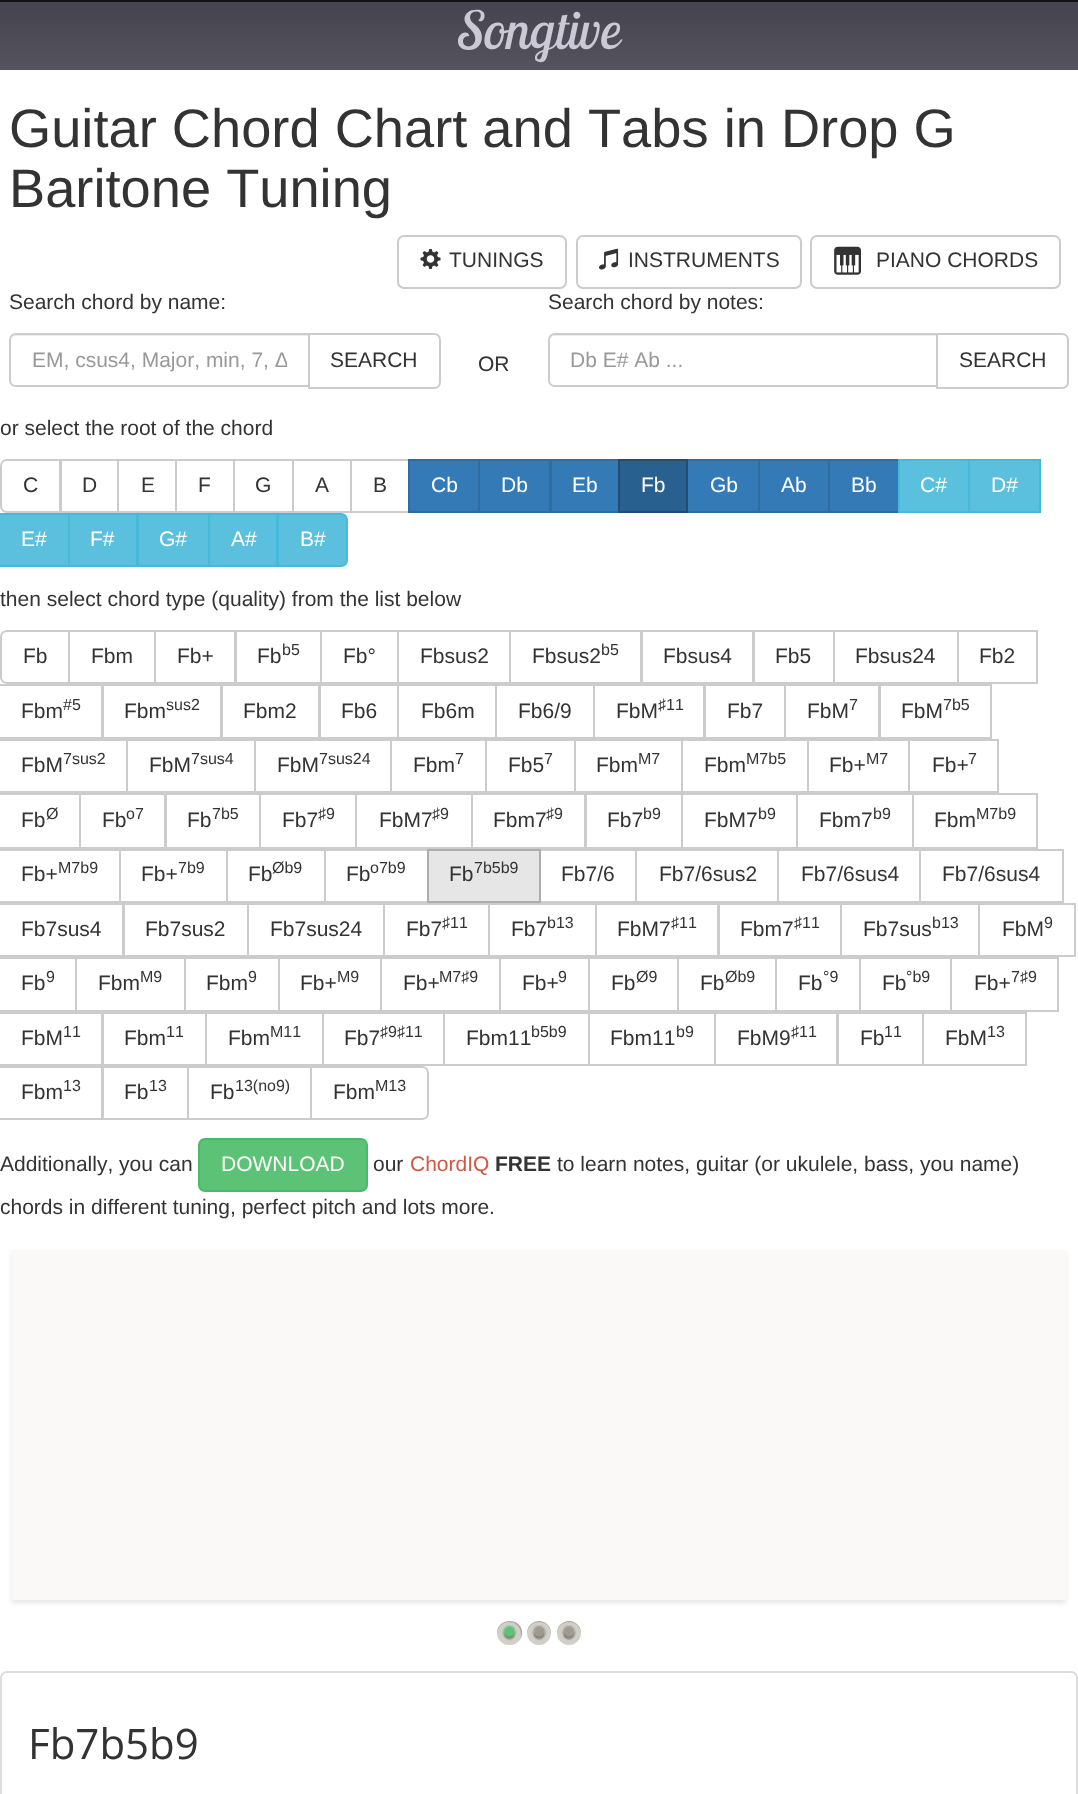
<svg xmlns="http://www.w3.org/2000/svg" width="1078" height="1794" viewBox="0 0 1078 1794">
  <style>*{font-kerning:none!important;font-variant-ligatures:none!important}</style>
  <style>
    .t1 { font: italic 52.5px Lobster Two; fill: #cbc9d6; }
    .t2 { font: 54.25px Liberation Sans; fill: #333; }
    .t3 { font: 21px Liberation Sans; fill: #333; }
    .t4 { font: 21px Liberation Sans; fill: #999; }
    .t5 { font: 21px Liberation Sans; fill: #fff; }
    .t6 { font: 16px Liberation Sans; fill: #333; }
    .t7 { font: 21px Liberation Sans; fill: #d15844; }
    .t8 { font: bold 21px Liberation Sans; fill: #333; }
    .t9 { font: 42px Open Sans; fill: #333; }
  </style>
  <defs>
    <linearGradient id="g1" gradientUnits="userSpaceOnUse" x1="539" y1="1.7" x2="539" y2="70"><stop offset="0" stop-color="#45434e"/><stop offset="1" stop-color="#55535e"/></linearGradient>
    <clipPath id="clip1"><rect x="32" y="348" width="255" height="25"/></clipPath>
  </defs>
  <rect width="100%" height="100%" fill="#fff"/>
  <rect x="0" y="2" width="1078" height="68" fill="url(#g1)"/>
  <rect x="0" y="0" width="1078" height="2" fill="#131114"/>
  <text x="458" y="49" class="t1">Songtive</text>
  <text x="9" y="147" class="t2">Guitar Chord Chart and Tabs in Drop G</text>
  <text x="9" y="207" class="t2">Baritone Tuning</text>
  <rect x="398" y="236" width="168" height="52" rx="6" fill="none" stroke="#ccc" stroke-width="2"/>
  <image x="420" y="248" width="21" height="21" href="images/1.png"/>
  <text x="449" y="267" class="t3">TUNINGS</text>
  <rect x="577" y="236" width="224" height="52" rx="6" fill="none" stroke="#ccc" stroke-width="2"/>
  <image x="599" y="248" width="20" height="22" href="images/2.png"/>
  <text x="628" y="267" class="t3">INSTRUMENTS</text>
  <rect x="811" y="236" width="249" height="52" rx="6" fill="none" stroke="#ccc" stroke-width="2"/>
  <image x="834" y="246" width="27" height="29" href="images/3.png"/>
  <text x="876" y="267" class="t3">PIANO CHORDS</text>
  <text x="9" y="309" class="t3">Search chord by name:</text>
  <path d="M309 334H434C437.5 334 440 336.5 440 340V382C440 385.5 437.5 388 434 388H309Z" fill="none" stroke="#ccc" stroke-width="2"/>
  <path d="M16 333H310V387H16C12 387 9 384 9 380V340C9 336 12 333 16 333Z" fill="#fff"/>
  <path d="M16 336H308V334H16C14 334 11 336 11 338C12 337 14 336 16 336Z" fill="#ececec"/>
  <path d="M16 334H309V386H16C12.5 386 10 383.5 10 380V340C10 336.5 12.5 334 16 334Z" fill="none" stroke="#ccc" stroke-width="2"/>
  <g clip-path="url(#clip1)">
    <text x="32" y="367" class="t4">EM, csus4, Major, min, 7, Δ</text>
  </g>
  <text x="330" y="367" class="t3">SEARCH</text>
  <text x="478" y="371" class="t3">OR</text>
  <text x="548" y="309" class="t3">Search chord by notes:</text>
  <path d="M937 334H1062C1065.5 334 1068 336.5 1068 340V382C1068 385.5 1065.5 388 1062 388H937Z" fill="none" stroke="#ccc" stroke-width="2"/>
  <path d="M555 333H938V387H555C551 387 548 384 548 380V340C548 336 551 333 555 333Z" fill="#fff"/>
  <path d="M555 336H936V334H555C552 334 550 336 550 339V341C550 338 552 336 555 336Z" fill="#ececec"/>
  <path d="M555 334H937V386H555C551.5 386 549 383.5 549 380V340C549 336.5 551.5 334 555 334Z" fill="none" stroke="#ccc" stroke-width="2"/>
  <text x="570" y="367" class="t4">Db E# Ab ...</text>
  <text x="959" y="367" class="t3">SEARCH</text>
  <text x="0" y="435" class="t3">or select the root of the chord</text>
  <path d="M7 460H60V512H7C3.5 512 1 509.5 1 506V466C1 462.5 3.5 460 7 460Z" fill="none" stroke="#ccc" stroke-width="2"/>
  <text x="23" y="492" class="t3">C</text>
  <rect x="61" y="460" width="57" height="52" fill="none" stroke="#ccc" stroke-width="2"/>
  <text x="82" y="492" class="t3">D</text>
  <rect x="118" y="460" width="58" height="52" fill="none" stroke="#ccc" stroke-width="2"/>
  <text x="141" y="492" class="t3">E</text>
  <rect x="176" y="460" width="58" height="52" fill="none" stroke="#ccc" stroke-width="2"/>
  <text x="198" y="492" class="t3">F</text>
  <rect x="234" y="460" width="59" height="52" fill="none" stroke="#ccc" stroke-width="2"/>
  <text x="255" y="492" class="t3">G</text>
  <rect x="293" y="460" width="58" height="52" fill="none" stroke="#ccc" stroke-width="2"/>
  <text x="315" y="492" class="t3">A</text>
  <rect x="351" y="460" width="58" height="52" fill="none" stroke="#ccc" stroke-width="2"/>
  <text x="373" y="492" class="t3">B</text>
  <rect x="409" y="460" width="70" height="52" fill="#337ab7" stroke="#2e6da4" stroke-width="2"/>
  <text x="431" y="492" class="t5">Cb</text>
  <rect x="479" y="460" width="71" height="52" fill="#337ab7" stroke="#2e6da4" stroke-width="2"/>
  <text x="501" y="492" class="t5">Db</text>
  <rect x="551" y="460" width="68" height="52" fill="#337ab7" stroke="#2e6da4" stroke-width="2"/>
  <text x="572" y="492" class="t5">Eb</text>
  <rect x="687" y="460" width="72" height="52" fill="#337ab7" stroke="#2e6da4" stroke-width="2"/>
  <rect x="619" y="460" width="68" height="52" fill="#286090" stroke="#204d74" stroke-width="2"/>
  <text x="641" y="492" class="t5">Fb</text>
  <text x="710" y="492" class="t5">Gb</text>
  <rect x="759" y="460" width="70" height="52" fill="#337ab7" stroke="#2e6da4" stroke-width="2"/>
  <text x="781" y="492" class="t5">Ab</text>
  <rect x="829" y="460" width="70" height="52" fill="#337ab7" stroke="#2e6da4" stroke-width="2"/>
  <text x="851" y="492" class="t5">Bb</text>
  <rect x="899" y="460" width="70" height="52" fill="#5bc0de" stroke="#46b8da" stroke-width="2"/>
  <text x="920" y="492" class="t5">C#</text>
  <rect x="969" y="460" width="71" height="52" fill="#5bc0de" stroke="#46b8da" stroke-width="2"/>
  <text x="991" y="492" class="t5">D#</text>
  <rect x="-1" y="514" width="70" height="52" fill="#5bc0de" stroke="#46b8da" stroke-width="2"/>
  <text x="21" y="546" class="t5">E#</text>
  <rect x="69" y="514" width="68" height="52" fill="#5bc0de" stroke="#46b8da" stroke-width="2"/>
  <text x="90" y="546" class="t5">F#</text>
  <rect x="138" y="514" width="71" height="52" fill="#5bc0de" stroke="#46b8da" stroke-width="2"/>
  <text x="159" y="546" class="t5">G#</text>
  <rect x="209" y="514" width="68" height="52" fill="#5bc0de" stroke="#46b8da" stroke-width="2"/>
  <text x="231" y="546" class="t5">A#</text>
  <path d="M278 514H341C344.5 514 347 516.5 347 520V560C347 563.5 344.5 566 341 566H278Z" fill="#5bc0de" stroke="#46b8da" stroke-width="2"/>
  <text x="300" y="546" class="t5">B#</text>
  <text x="0" y="606" class="t3">then select chord type (quality) from the list below</text>
  <path d="M7 631H69V683H7C3.5 683 1 680.5 1 677V637C1 633.5 3.5 631 7 631Z" fill="none" stroke="#ccc" stroke-width="2"/>
  <text x="23" y="663" class="t3">Fb</text>
  <rect x="69" y="631" width="86" height="52" fill="none" stroke="#ccc" stroke-width="2"/>
  <text x="91" y="663" class="t3">Fbm</text>
  <rect x="155" y="631" width="80" height="52" fill="none" stroke="#ccc" stroke-width="2"/>
  <text x="177" y="663" class="t3">Fb+</text>
  <rect x="236" y="631" width="85" height="52" fill="none" stroke="#ccc" stroke-width="2"/>
  <text x="257" y="663" class="t3">Fb</text>
  <text x="282" y="655" class="t6">b5</text>
  <rect x="321" y="631" width="77" height="52" fill="none" stroke="#ccc" stroke-width="2"/>
  <text x="343" y="663" class="t3">Fb°</text>
  <rect x="398" y="631" width="112" height="52" fill="none" stroke="#ccc" stroke-width="2"/>
  <text x="420" y="663" class="t3">Fbsus2</text>
  <rect x="510" y="631" width="131" height="52" fill="none" stroke="#ccc" stroke-width="2"/>
  <text x="532" y="663" class="t3">Fbsus2</text>
  <text x="601" y="655" class="t6">b5</text>
  <rect x="642" y="631" width="111" height="52" fill="none" stroke="#ccc" stroke-width="2"/>
  <text x="663" y="663" class="t3">Fbsus4</text>
  <rect x="754" y="631" width="80" height="52" fill="none" stroke="#ccc" stroke-width="2"/>
  <text x="775" y="663" class="t3">Fb5</text>
  <rect x="834" y="631" width="124" height="52" fill="none" stroke="#ccc" stroke-width="2"/>
  <text x="855" y="663" class="t3">Fbsus24</text>
  <rect x="958" y="631" width="79" height="52" fill="none" stroke="#ccc" stroke-width="2"/>
  <text x="979" y="663" class="t3">Fb2</text>
  <rect x="-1" y="685" width="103" height="53" fill="none" stroke="#ccc" stroke-width="2"/>
  <text x="21" y="718" class="t3">Fbm</text>
  <text x="63" y="710" class="t6">#5</text>
  <rect x="103" y="685" width="118" height="53" fill="none" stroke="#ccc" stroke-width="2"/>
  <text x="124" y="718" class="t3">Fbm</text>
  <text x="166" y="710" class="t6">sus2</text>
  <rect x="222" y="685" width="97" height="53" fill="none" stroke="#ccc" stroke-width="2"/>
  <text x="243" y="718" class="t3">Fbm2</text>
  <rect x="320" y="685" width="78" height="53" fill="none" stroke="#ccc" stroke-width="2"/>
  <text x="341" y="718" class="t3">Fb6</text>
  <rect x="398" y="685" width="98" height="53" fill="none" stroke="#ccc" stroke-width="2"/>
  <text x="421" y="718" class="t3">Fb6m</text>
  <rect x="496" y="685" width="98" height="53" fill="none" stroke="#ccc" stroke-width="2"/>
  <text x="518" y="718" class="t3">Fb6/9</text>
  <rect x="594" y="685" width="110" height="53" fill="none" stroke="#ccc" stroke-width="2"/>
  <text x="616" y="718" class="t3">FbM</text>
  <text x="658" y="710" class="t6">♯11</text>
  <rect x="705" y="685" width="80" height="53" fill="none" stroke="#ccc" stroke-width="2"/>
  <text x="727" y="718" class="t3">Fb7</text>
  <rect x="785" y="685" width="94" height="53" fill="none" stroke="#ccc" stroke-width="2"/>
  <text x="807" y="718" class="t3">FbM</text>
  <text x="849" y="710" class="t6">7</text>
  <rect x="880" y="685" width="111" height="53" fill="none" stroke="#ccc" stroke-width="2"/>
  <text x="901" y="718" class="t3">FbM</text>
  <text x="943" y="710" class="t6">7b5</text>
  <rect x="-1" y="740" width="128" height="52" fill="none" stroke="#ccc" stroke-width="2"/>
  <text x="21" y="772" class="t3">FbM</text>
  <text x="63" y="764" class="t6">7sus2</text>
  <rect x="127" y="740" width="128" height="52" fill="none" stroke="#ccc" stroke-width="2"/>
  <text x="149" y="772" class="t3">FbM</text>
  <text x="191" y="764" class="t6">7sus4</text>
  <rect x="255" y="740" width="136" height="52" fill="none" stroke="#ccc" stroke-width="2"/>
  <text x="277" y="772" class="t3">FbM</text>
  <text x="319" y="764" class="t6">7sus24</text>
  <rect x="391" y="740" width="95" height="52" fill="none" stroke="#ccc" stroke-width="2"/>
  <text x="413" y="772" class="t3">Fbm</text>
  <text x="455" y="764" class="t6">7</text>
  <rect x="486" y="740" width="89" height="52" fill="none" stroke="#ccc" stroke-width="2"/>
  <text x="508" y="772" class="t3">Fb5</text>
  <text x="544" y="764" class="t6">7</text>
  <rect x="575" y="740" width="107" height="52" fill="none" stroke="#ccc" stroke-width="2"/>
  <text x="596" y="772" class="t3">Fbm</text>
  <text x="638" y="764" class="t6">M7</text>
  <rect x="682" y="740" width="126" height="52" fill="none" stroke="#ccc" stroke-width="2"/>
  <text x="704" y="772" class="t3">Fbm</text>
  <text x="746" y="764" class="t6">M7b5</text>
  <rect x="808" y="740" width="101" height="52" fill="none" stroke="#ccc" stroke-width="2"/>
  <text x="829" y="772" class="t3">Fb+</text>
  <text x="866" y="764" class="t6">M7</text>
  <rect x="909" y="740" width="89" height="52" fill="none" stroke="#ccc" stroke-width="2"/>
  <text x="932" y="772" class="t3">Fb+</text>
  <text x="968" y="764" class="t6">7</text>
  <rect x="-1" y="794" width="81" height="54" fill="none" stroke="#ccc" stroke-width="2"/>
  <text x="21" y="827" class="t3">Fb</text>
  <text x="46" y="819" class="t6">Ø</text>
  <rect x="80" y="794" width="85" height="54" fill="none" stroke="#ccc" stroke-width="2"/>
  <text x="102" y="827" class="t3">Fb</text>
  <text x="126" y="819" class="t6">o7</text>
  <rect x="166" y="794" width="94" height="54" fill="none" stroke="#ccc" stroke-width="2"/>
  <text x="187" y="827" class="t3">Fb</text>
  <text x="212" y="819" class="t6">7b5</text>
  <rect x="260" y="794" width="96" height="54" fill="none" stroke="#ccc" stroke-width="2"/>
  <text x="282" y="827" class="t3">Fb7</text>
  <text x="318" y="819" class="t6">♯9</text>
  <rect x="356" y="794" width="116" height="54" fill="none" stroke="#ccc" stroke-width="2"/>
  <text x="379" y="827" class="t3">FbM7</text>
  <text x="432" y="819" class="t6">♯9</text>
  <rect x="472" y="794" width="113" height="54" fill="none" stroke="#ccc" stroke-width="2"/>
  <text x="493" y="827" class="t3">Fbm7</text>
  <text x="546" y="819" class="t6">♯9</text>
  <rect x="586" y="794" width="96" height="54" fill="none" stroke="#ccc" stroke-width="2"/>
  <text x="607" y="827" class="t3">Fb7</text>
  <text x="643" y="819" class="t6">b9</text>
  <rect x="682" y="794" width="115" height="54" fill="none" stroke="#ccc" stroke-width="2"/>
  <text x="704" y="827" class="t3">FbM7</text>
  <text x="758" y="819" class="t6">b9</text>
  <rect x="797" y="794" width="116" height="54" fill="none" stroke="#ccc" stroke-width="2"/>
  <text x="819" y="827" class="t3">Fbm7</text>
  <text x="873" y="819" class="t6">b9</text>
  <rect x="913" y="794" width="124" height="54" fill="none" stroke="#ccc" stroke-width="2"/>
  <text x="934" y="827" class="t3">Fbm</text>
  <text x="976" y="819" class="t6">M7b9</text>
  <rect x="-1" y="850" width="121" height="52" fill="none" stroke="#ccc" stroke-width="2"/>
  <text x="21" y="881" class="t3">Fb+</text>
  <text x="58" y="873" class="t6">M7b9</text>
  <rect x="120" y="850" width="107" height="52" fill="none" stroke="#ccc" stroke-width="2"/>
  <text x="141" y="881" class="t3">Fb+</text>
  <text x="178" y="873" class="t6">7b9</text>
  <rect x="227" y="850" width="98" height="52" fill="none" stroke="#ccc" stroke-width="2"/>
  <text x="248" y="881" class="t3">Fb</text>
  <text x="272" y="873" class="t6">Øb9</text>
  <rect x="325" y="850" width="103" height="52" fill="none" stroke="#ccc" stroke-width="2"/>
  <text x="346" y="881" class="t3">Fb</text>
  <text x="370" y="873" class="t6">o7b9</text>
  <rect x="540" y="850" width="96" height="52" fill="none" stroke="#ccc" stroke-width="2"/>
  <rect x="428" y="850" width="112" height="52" fill="#e6e6e6" stroke="#adadad" stroke-width="2"/>
  <text x="449" y="881" class="t3">Fb</text>
  <text x="474" y="873" class="t6">7b5b9</text>
  <text x="561" y="881" class="t3">Fb7/6</text>
  <rect x="636" y="850" width="142" height="52" fill="none" stroke="#ccc" stroke-width="2"/>
  <text x="659" y="881" class="t3">Fb7/6sus2</text>
  <rect x="778" y="850" width="142" height="52" fill="none" stroke="#ccc" stroke-width="2"/>
  <text x="801" y="881" class="t3">Fb7/6sus4</text>
  <rect x="920" y="850" width="143" height="52" fill="none" stroke="#ccc" stroke-width="2"/>
  <text x="942" y="881" class="t3">Fb7/6sus4</text>
  <rect x="-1" y="904" width="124" height="52" fill="none" stroke="#ccc" stroke-width="2"/>
  <text x="21" y="936" class="t3">Fb7sus4</text>
  <rect x="124" y="904" width="124" height="52" fill="none" stroke="#ccc" stroke-width="2"/>
  <text x="145" y="936" class="t3">Fb7sus2</text>
  <rect x="248" y="904" width="136" height="52" fill="none" stroke="#ccc" stroke-width="2"/>
  <text x="270" y="936" class="t3">Fb7sus24</text>
  <rect x="384" y="904" width="105" height="52" fill="none" stroke="#ccc" stroke-width="2"/>
  <text x="406" y="936" class="t3">Fb7</text>
  <text x="442" y="928" class="t6">♯11</text>
  <rect x="489" y="904" width="107" height="52" fill="none" stroke="#ccc" stroke-width="2"/>
  <text x="511" y="936" class="t3">Fb7</text>
  <text x="547" y="928" class="t6">b13</text>
  <rect x="596" y="904" width="122" height="52" fill="none" stroke="#ccc" stroke-width="2"/>
  <text x="617" y="936" class="t3">FbM7</text>
  <text x="671" y="928" class="t6">♯11</text>
  <rect x="719" y="904" width="122" height="52" fill="none" stroke="#ccc" stroke-width="2"/>
  <text x="740" y="936" class="t3">Fbm7</text>
  <text x="794" y="928" class="t6">♯11</text>
  <rect x="841" y="904" width="138" height="52" fill="none" stroke="#ccc" stroke-width="2"/>
  <text x="863" y="936" class="t3">Fb7sus</text>
  <text x="932" y="928" class="t6">b13</text>
  <rect x="979" y="904" width="96" height="52" fill="none" stroke="#ccc" stroke-width="2"/>
  <text x="1002" y="936" class="t3">FbM</text>
  <text x="1044" y="928" class="t6">9</text>
  <rect x="-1" y="958" width="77" height="53" fill="none" stroke="#ccc" stroke-width="2"/>
  <text x="21" y="990" class="t3">Fb</text>
  <text x="46" y="982" class="t6">9</text>
  <rect x="76" y="958" width="109" height="53" fill="none" stroke="#ccc" stroke-width="2"/>
  <text x="98" y="990" class="t3">Fbm</text>
  <text x="140" y="982" class="t6">M9</text>
  <rect x="185" y="958" width="94" height="53" fill="none" stroke="#ccc" stroke-width="2"/>
  <text x="206" y="990" class="t3">Fbm</text>
  <text x="248" y="982" class="t6">9</text>
  <rect x="279" y="958" width="102" height="53" fill="none" stroke="#ccc" stroke-width="2"/>
  <text x="300" y="990" class="t3">Fb+</text>
  <text x="337" y="982" class="t6">M9</text>
  <rect x="381" y="958" width="119" height="53" fill="none" stroke="#ccc" stroke-width="2"/>
  <text x="403" y="990" class="t3">Fb+</text>
  <text x="439" y="982" class="t6">M7♯9</text>
  <rect x="500" y="958" width="89" height="53" fill="none" stroke="#ccc" stroke-width="2"/>
  <text x="522" y="990" class="t3">Fb+</text>
  <text x="558" y="982" class="t6">9</text>
  <rect x="589" y="958" width="89" height="53" fill="none" stroke="#ccc" stroke-width="2"/>
  <text x="611" y="990" class="t3">Fb</text>
  <text x="636" y="982" class="t6">Ø9</text>
  <rect x="678" y="958" width="98" height="53" fill="none" stroke="#ccc" stroke-width="2"/>
  <text x="700" y="990" class="t3">Fb</text>
  <text x="725" y="982" class="t6">Øb9</text>
  <rect x="776" y="958" width="84" height="53" fill="none" stroke="#ccc" stroke-width="2"/>
  <text x="798" y="990" class="t3">Fb</text>
  <text x="823" y="982" class="t6">°9</text>
  <rect x="860" y="958" width="91" height="53" fill="none" stroke="#ccc" stroke-width="2"/>
  <text x="882" y="990" class="t3">Fb</text>
  <text x="906" y="982" class="t6">°b9</text>
  <rect x="951" y="958" width="107" height="53" fill="none" stroke="#ccc" stroke-width="2"/>
  <text x="974" y="990" class="t3">Fb+</text>
  <text x="1011" y="982" class="t6">7♯9</text>
  <rect x="-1" y="1013" width="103" height="52" fill="none" stroke="#ccc" stroke-width="2"/>
  <text x="21" y="1045" class="t3">FbM</text>
  <text x="63" y="1037" class="t6">11</text>
  <rect x="103" y="1013" width="103" height="52" fill="none" stroke="#ccc" stroke-width="2"/>
  <text x="124" y="1045" class="t3">Fbm</text>
  <text x="166" y="1037" class="t6">11</text>
  <rect x="206" y="1013" width="117" height="52" fill="none" stroke="#ccc" stroke-width="2"/>
  <text x="228" y="1045" class="t3">Fbm</text>
  <text x="270" y="1037" class="t6">M11</text>
  <rect x="323" y="1013" width="121" height="52" fill="none" stroke="#ccc" stroke-width="2"/>
  <text x="344" y="1045" class="t3">Fb7</text>
  <text x="380" y="1037" class="t6">♯9♯11</text>
  <rect x="444" y="1013" width="145" height="52" fill="none" stroke="#ccc" stroke-width="2"/>
  <text x="466" y="1045" class="t3">Fbm11</text>
  <text x="531" y="1037" class="t6">b5b9</text>
  <rect x="589" y="1013" width="126" height="52" fill="none" stroke="#ccc" stroke-width="2"/>
  <text x="610" y="1045" class="t3">Fbm11</text>
  <text x="676" y="1037" class="t6">b9</text>
  <rect x="715" y="1013" width="122" height="52" fill="none" stroke="#ccc" stroke-width="2"/>
  <text x="737" y="1045" class="t3">FbM9</text>
  <text x="791" y="1037" class="t6">♯11</text>
  <rect x="838" y="1013" width="85" height="52" fill="none" stroke="#ccc" stroke-width="2"/>
  <text x="860" y="1045" class="t3">Fb</text>
  <text x="884" y="1037" class="t6">11</text>
  <rect x="923" y="1013" width="103" height="52" fill="none" stroke="#ccc" stroke-width="2"/>
  <text x="945" y="1045" class="t3">FbM</text>
  <text x="987" y="1037" class="t6">13</text>
  <rect x="-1" y="1067" width="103" height="52" fill="none" stroke="#ccc" stroke-width="2"/>
  <text x="21" y="1099" class="t3">Fbm</text>
  <text x="63" y="1091" class="t6">13</text>
  <rect x="103" y="1067" width="85" height="52" fill="none" stroke="#ccc" stroke-width="2"/>
  <text x="124" y="1099" class="t3">Fb</text>
  <text x="149" y="1091" class="t6">13</text>
  <rect x="188" y="1067" width="123" height="52" fill="none" stroke="#ccc" stroke-width="2"/>
  <text x="210" y="1099" class="t3">Fb</text>
  <text x="235" y="1091" class="t6">13(no9)</text>
  <path d="M311 1067H422C425.5 1067 428 1069.5 428 1073V1113C428 1116.5 425.5 1119 422 1119H311Z" fill="#fff" stroke="#ccc" stroke-width="2"/>
  <text x="333" y="1099" class="t3">Fbm</text>
  <text x="375" y="1091" class="t6">M13</text>
  <text x="0" y="1171" class="t3">Additionally, you can</text>
  <rect x="199" y="1139" width="168" height="52" rx="6" fill="#5cc276" stroke="#49bb66" stroke-width="2"/>
  <text x="221" y="1171" class="t5">DOWNLOAD</text>
  <text x="373" y="1171" class="t3">our</text>
  <text x="410" y="1171" class="t7">ChordIQ</text>
  <text x="495" y="1171" class="t8">FREE</text>
  <text x="557" y="1171" class="t3">to learn notes, guitar (or ukulele, bass, you name)</text>
  <text x="0" y="1214" class="t3">chords in different tuning, perfect pitch and lots more.</text>
  <rect x="12" y="1253" width="1054" height="350" fill="#0000001a" filter="blur(2.5px)"/>
  <rect x="12" y="1250" width="1054" height="350" fill="#faf9f7"/>
  <rect x="497" y="1621" width="25" height="24" rx="12" fill="#d2cfc8"/>
  <image x="502" y="1625" width="15" height="16" href="images/4.png"/>
  <path d="M509 1622C519 1622 523 1632 520 1639.5C522 1637 522.5 1633.5 522 1630.5C519 1616 496 1619 497 1633.5C497.5 1627.5 501.5 1622 509 1622Z" fill="#00000033"/>
  <circle cx="539" cy="1633" r="12" fill="#d2cfc8"/>
  <image x="531" y="1625" width="16" height="16" href="images/5.png"/>
  <path d="M539 1622C546.5 1622 550.5 1627.5 551 1633.5C551 1631 550.5 1628.5 549 1626.5C542 1616 526.5 1621.5 527 1633.5C527.5 1627.5 531.5 1622 539 1622Z" fill="#00000033"/>
  <circle cx="569" cy="1633" r="12" fill="#d2cfc8"/>
  <image x="561" y="1625" width="16" height="16" href="images/6.png"/>
  <path d="M569 1622C576.5 1622 580.5 1627.5 581 1633.5C581 1631 580.5 1628.5 579 1626.5C572 1616 556.5 1621.5 557 1633.5C557.5 1627.5 561.5 1622 569 1622Z" fill="#00000033"/>
  <rect x="1" y="1672" width="1076" height="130" rx="6" fill="none" stroke="#ddd" stroke-width="2"/>
  <text x="28" y="1759" class="t9">Fb7b5b9</text>
</svg>
